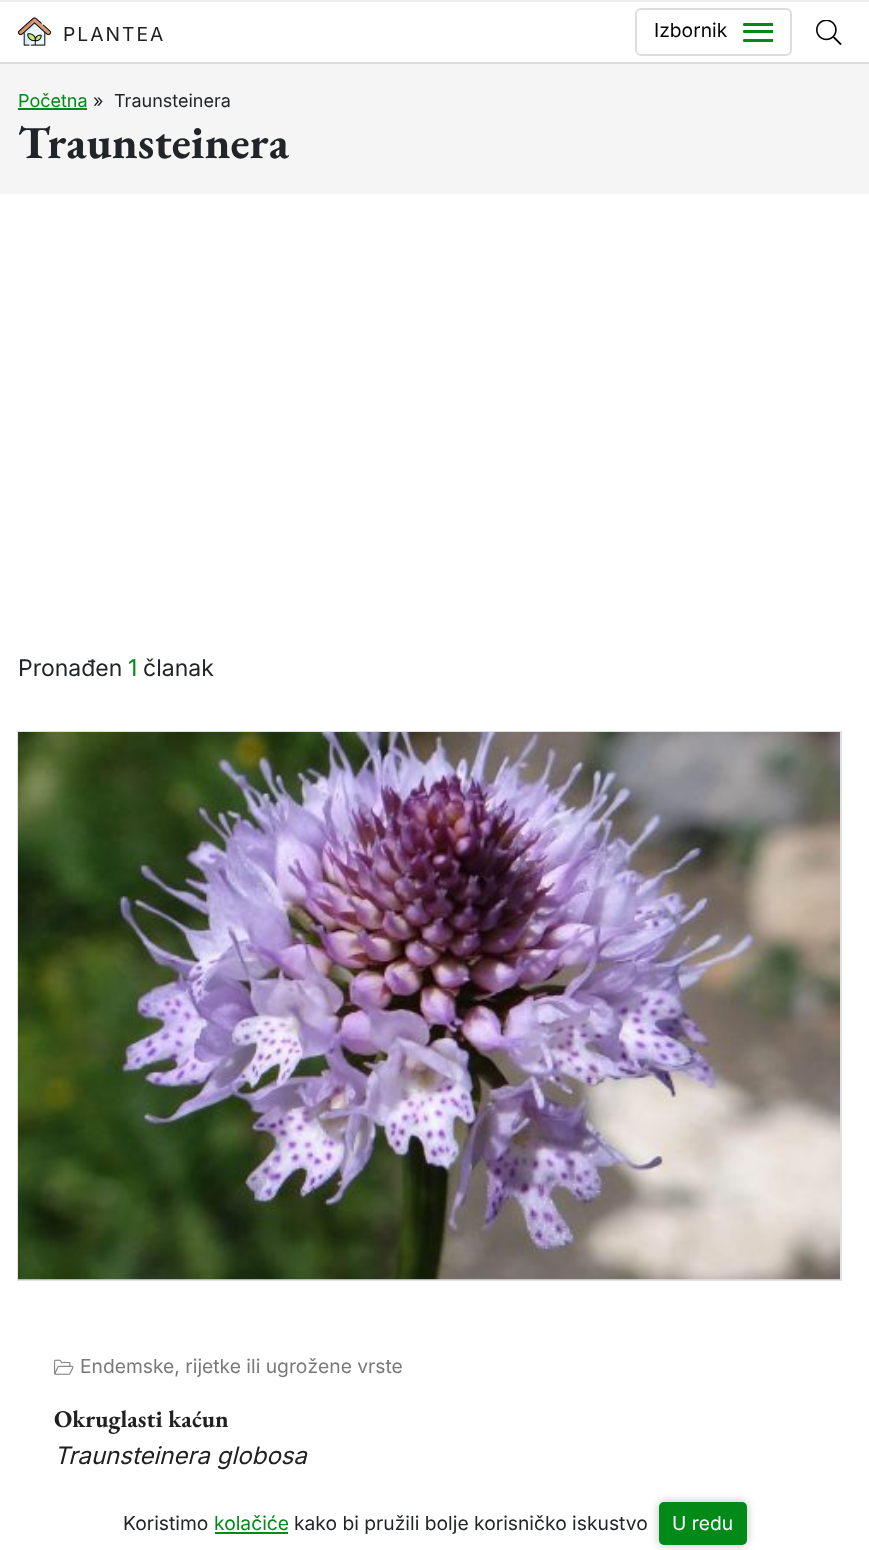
<svg xmlns="http://www.w3.org/2000/svg" width="869" height="1550" viewBox="0 0 869 1550">
  <style>
    .t1 { font: 19.25px Inter; letter-spacing: 2px; fill: #202020; }
    .t2 { font: 19.25px Inter; fill: #000; }
    .t3 { font: 18px Inter; fill: #018a18; }
    .t4 { font: 18px Inter; fill: #212529; }
    .t5 { font: bold 46px EB Garamond; fill: #212529; }
    .t6 { font: 23px Inter; fill: #212529; }
    .t7 { font: 23px Inter; fill: #018a18; }
    .t8 { font: 19.25px Inter; fill: #797979; }
    .t9 { font: bold 24px EB Garamond; fill: #202020; }
    .t10 { font: italic 24px Inter; fill: #202020; }
    .t11 { font: 19.25px Inter; fill: #212529; }
    .t12 { font: 19.25px Inter; fill: #018a18; }
    .t13 { font: 19.25px Inter; fill: #fff; }
  </style>
  <rect width="100%" height="100%" fill="#fff"/>
  <rect x="0" y="0" width="869" height="2" fill="#eee"/>
  <rect x="0" y="62" width="869" height="2" fill="#ddd"/>
  <image x="18" y="17" width="33" height="29" href="images/1.png"/>
  <text x="63" y="41" class="t1">PLANTEA</text>
  <rect x="636" y="9" width="155" height="46" rx="5" fill="none" stroke="#ddd" stroke-width="2"/>
  <text x="654" y="37" class="t2">Izbornik</text>
  <path d="M744.5 23H773V26H744.5C743.5 26 743 25.5 743 24.5C743 23.5 743.5 23 744.5 23Z" fill="#018a18"/>
  <path d="M744.5 30H773V33H744.5C743.5 33 743 32.5 743 31.5C743 30.5 743.5 30 744.5 30Z" fill="#018a18"/>
  <path d="M744.5 39H773V42H744.5C743.5 42 743 41.5 743 40.5C743 39.5 743.5 39 744.5 39Z" fill="#018a18"/>
  <image x="816" y="20" width="26" height="25" href="images/2.png"/>
  <rect x="0" y="64" width="869" height="130" fill="#f5f5f5"/>
  <text x="18" y="107" class="t3">Početna</text>
  <rect x="18" y="108" width="69" height="2" fill="#018a18"/>
  <text x="93" y="107" class="t4">»</text>
  <text x="114" y="107" class="t4">Traunsteinera</text>
  <text x="18" y="158" class="t5">Traunsteinera</text>
  <text x="18" y="676" class="t6">Pronađen</text>
  <text x="128" y="676" class="t7">1</text>
  <text x="143" y="676" class="t6">članak</text>
  <rect x="18" y="732" width="823" height="548" fill="none" stroke="#dee2e6" stroke-width="2"/>
  <image x="18" y="732" width="822" height="548" href="images/3.png"/>
  <image x="54" y="1359" width="20" height="16" href="images/4.png"/>
  <text x="80" y="1373" class="t8">Endemske, rijetke ili ugrožene vrste</text>
  <text x="54" y="1427" class="t9">Okruglasti kaćun</text>
  <text x="54" y="1464" class="t10">Traunsteinera globosa</text>
  <text x="123" y="1530" class="t11">Koristimo</text>
  <text x="214" y="1530" class="t12">kolačiće</text>
  <rect x="215" y="1532" width="73" height="2" fill="#018a18"/>
  <text x="294" y="1530" class="t11">kako bi pružili bolje korisničko iskustvo</text>
  <rect x="659" y="1502" width="88" height="43" rx="5" fill="#00000040" filter="blur(5px)"/>
  <rect x="659" y="1502" width="88" height="43" rx="5" fill="#018a18"/>
  <text x="672" y="1530" class="t13">U redu</text>
</svg>
